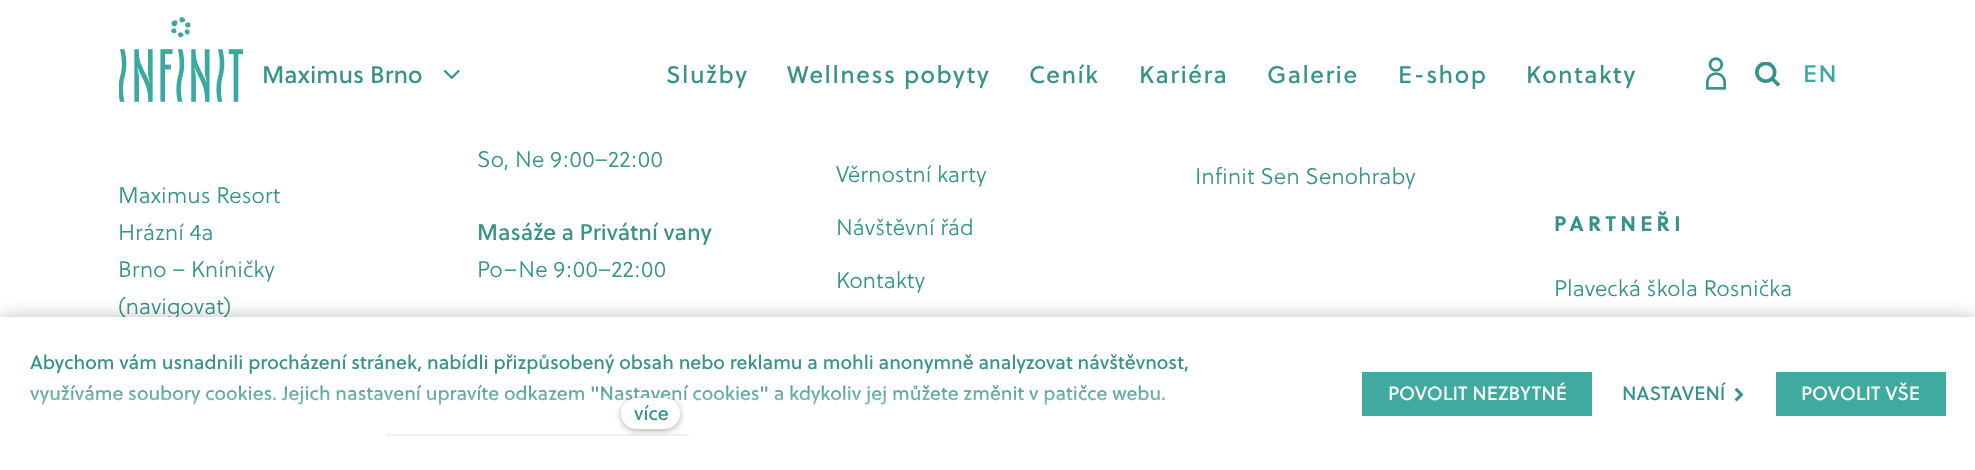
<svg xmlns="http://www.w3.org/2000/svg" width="1975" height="470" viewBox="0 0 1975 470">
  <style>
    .t1 { font: 24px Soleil; fill: #379388; }
    .t2 { font: 24px Soleil; letter-spacing: 1.5px; fill: #379388; }
    .t3 { font: 24px Soleil; letter-spacing: 1.5px; fill: #3aa99f; }
    .t4 { font: 300 22.5px Soleil; fill: #379388; }
    .t5 { font: 22.5px Soleil; fill: #379388; }
    .t6 { font: bold 21px Soleil; letter-spacing: 4.25px; fill: #379388; }
    .t7 { font: 19.2px Soleil; fill: #379388; }
    .t8 { font: 19.2px Soleil; fill: #fff; }
  </style>
  <defs>
    <linearGradient id="g1" gradientUnits="userSpaceOnUse" x1="651" y1="441" x2="651" y2="380"><stop offset="0" stop-color="#fff"/><stop offset="1" stop-color="#fff" stop-opacity="0"/></linearGradient>
  </defs>
  <rect width="100%" height="100%" fill="#fff"/>
  <image x="119" y="17" width="124" height="85" href="images/1.png"/>
  <text x="262" y="83" class="t1">Maximus Brno</text>
  <image x="443" y="69" width="17" height="11" href="images/2.png"/>
  <text x="666" y="83" class="t2">Služby</text>
  <text x="787" y="83" class="t2">Wellness pobyty</text>
  <text x="1029" y="83" class="t2">Ceník</text>
  <text x="1139" y="83" class="t2">Kariéra</text>
  <text x="1267" y="83" class="t2">Galerie</text>
  <text x="1398" y="83" class="t2">E-shop</text>
  <text x="1526" y="83" class="t2">Kontakty</text>
  <image x="1706" y="57" width="20" height="33" href="images/3.png"/>
  <image x="1755" y="62" width="26" height="25" href="images/4.png"/>
  <text x="1803" y="82" class="t3">EN</text>
  <text x="477" y="167" class="t4">So, Ne 9:00–22:00</text>
  <text x="477" y="240" class="t5">Masáže a Privátní vany</text>
  <text x="477" y="277" class="t4">Po–Ne 9:00–22:00</text>
  <text x="836" y="182" class="t4">Věrnostní karty</text>
  <text x="836" y="235" class="t4">Návštěvní řád</text>
  <text x="836" y="288" class="t4">Kontakty</text>
  <text x="1195" y="184" class="t4">Infinit Sen Senohraby</text>
  <text x="118" y="203" class="t4">Maximus Resort</text>
  <text x="118" y="240" class="t4">Hrázní 4a</text>
  <text x="118" y="277" class="t4">Brno – Kníničky</text>
  <text x="118" y="314" class="t4">(navigovat)</text>
  <text x="1554" y="231" class="t6">PARTNEŘI</text>
  <text x="1554" y="296" class="t4">Plavecká škola Rosnička</text>
  <rect x="0" y="317" width="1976" height="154" fill="#00000040" filter="blur(9px)"/>
  <rect x="0" y="317" width="1975" height="153" fill="#fff"/>
  <text x="30" y="369" class="t7">Abychom vám usnadnili procházení stránek, nabídli přizpůsobený obsah nebo reklamu a mohli anonymně analyzovat návštěvnost,</text>
  <text x="30" y="400" class="t7">využíváme soubory cookies. Jejich nastavení upravíte odkazem "Nastavení cookies" a kdykoliv jej můžete změnit v patičce webu.</text>
  <rect x="386" y="434" width="303" height="2" fill="#379388"/>
  <rect x="30" y="385" width="1136" height="51" fill="url(#g1)"/>
  <rect x="621" y="399" width="59" height="32" rx="16" fill="#0000004d" filter="blur(3px)"/>
  <rect x="621" y="398" width="59" height="31" rx="15.5" fill="#fff"/>
  <text x="634" y="420" class="t7">více</text>
  <rect x="1362" y="372" width="230" height="44" fill="#41aaa0"/>
  <text x="1388" y="400" class="t8">POVOLIT NEZBYTNÉ</text>
  <text x="1622" y="400" class="t7">NASTAVENÍ</text>
  <image x="1734" y="387" width="10" height="15" href="images/5.png"/>
  <rect x="1776" y="372" width="170" height="44" fill="#41aaa0"/>
  <text x="1801" y="400" class="t8">POVOLIT VŠE</text>
</svg>
